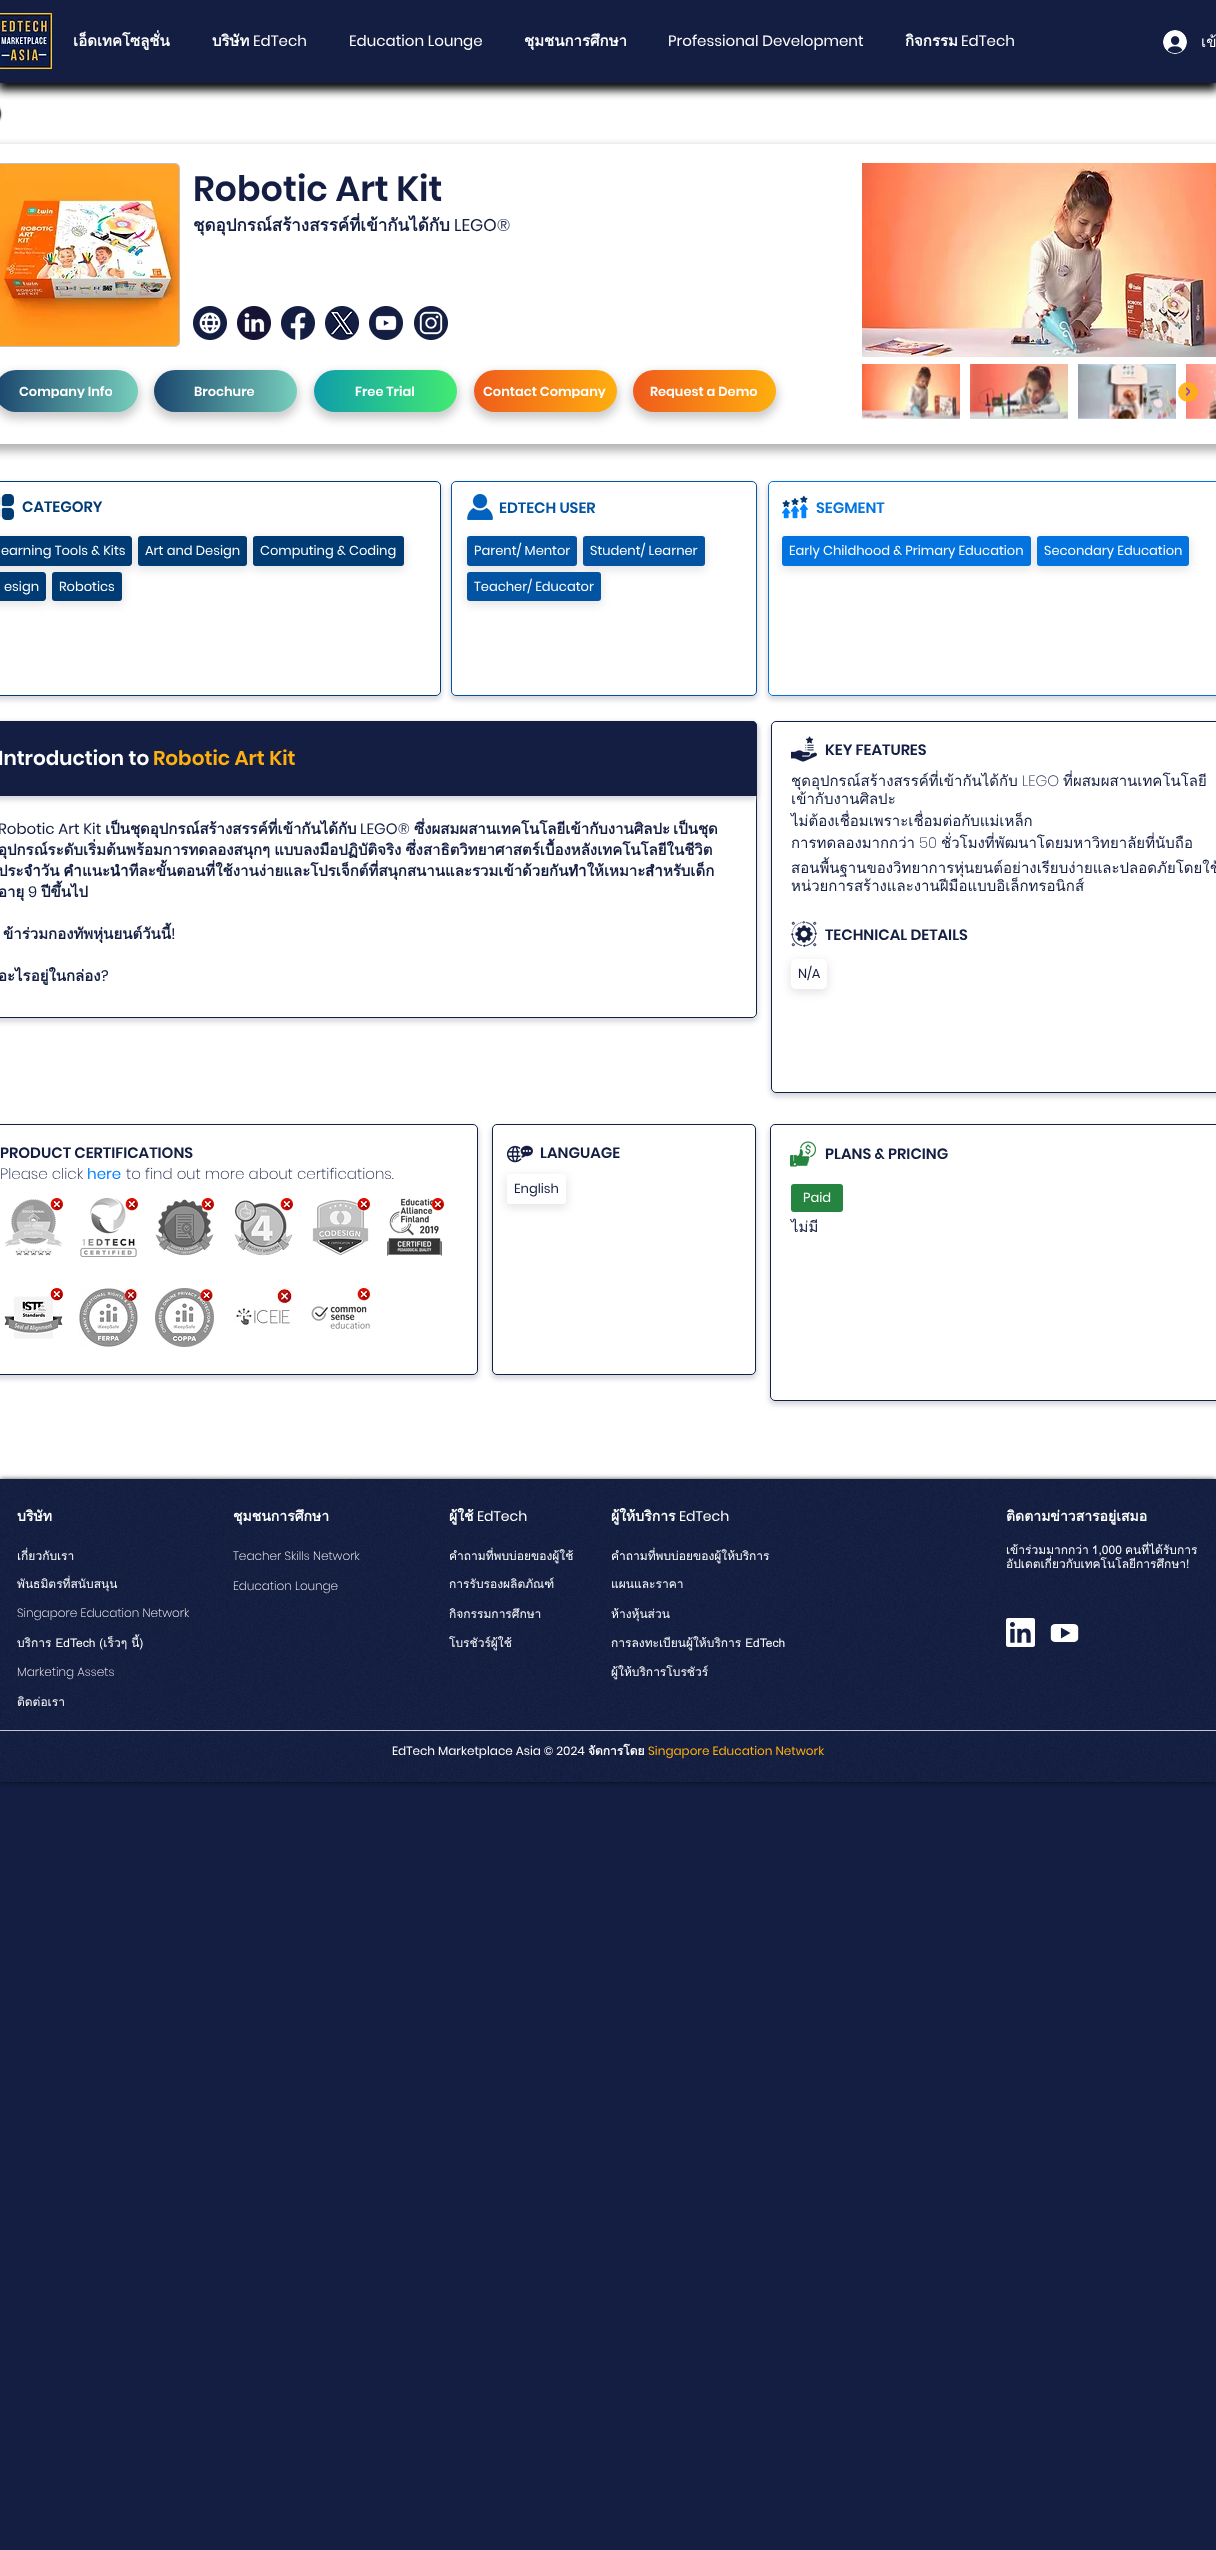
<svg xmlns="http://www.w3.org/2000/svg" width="1216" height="2550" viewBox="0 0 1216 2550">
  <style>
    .t1 { font: bold 15px Loma; fill: #fff; }
    .t2 { font: 15px Poppins; fill: #fff; }
    .t3 { font: 15px Loma; fill: #fff; }
    .t4 { font: 600 35px Poppins; fill: #131e42; }
    .t5 { font: bold 17px Loma; fill: #131e42; }
    .t6 { font: 17px Poppins; fill: #131e42; }
    .t7 { font: 600 13px Poppins; fill: #fff; }
    .t8 { font: 600 15px Poppins; fill: #003b73; }
    .t9 { font: 13px Poppins; fill: #fff; }
    .t10 { font: 600 15px Poppins; fill: #0254a2; }
    .t11 { font: 600 15px Poppins; fill: #0374df; }
    .t12 { font: 600 20px Poppins; fill: #fff; }
    .t13 { font: 600 20px Poppins; fill: #ffaf0f; }
    .t14 { font: 15px Poppins; fill: #131e42; }
    .t15 { font: bold 15px Loma; fill: #131e42; }
    .t16 { font: 600 15px Poppins; fill: #131e42; }
    .t17 { font: 15px Loma; fill: #131e42; }
    .t18 { font: 200 15px Poppins; fill: #131e42; }
    .t19 { font: 13px Poppins; fill: #131e42; }
    .t20 { font: 15px Poppins; fill: #0083ff; }
    .t21 { font: bold 14px Loma; fill: #fff; }
    .t22 { font: 200 12px Poppins; fill: #fff; }
    .t23 { font: 14px Poppins; fill: #fff; }
    .t24 { font: 12px Loma; fill: #fff; }
    .t25 { font: 12px Poppins; fill: #fff; }
    .t26 { font: bold 12px Loma; fill: #fff; }
    .t27 { font: 12px Poppins; fill: #ffaf0f; }
  </style>
  <defs>
    <clipPath id="clip1"><rect x="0" y="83" width="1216" height="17"/></clipPath>
    <clipPath id="clip2"><path d="M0 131H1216V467H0ZM-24 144H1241C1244 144 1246 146 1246 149V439C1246 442 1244 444 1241 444H-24C-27 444-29 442-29 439V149C-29 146-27 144-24 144Z" clip-rule="evenodd"/></clipPath>
    <linearGradient id="g1" gradientUnits="userSpaceOnUse" x1="-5" y1="391" x2="138" y2="391"><stop offset="0" stop-color="#1a456d"/><stop offset="1" stop-color="#77cfbd"/></linearGradient>
    <clipPath id="clip3"><rect x="19" y="385" width="93" height="13"/></clipPath>
    <linearGradient id="g2" gradientUnits="userSpaceOnUse" x1="154" y1="391" x2="297" y2="391"><stop offset="0" stop-color="#1a456d"/><stop offset="1" stop-color="#77cfbd"/></linearGradient>
    <linearGradient id="g3" gradientUnits="userSpaceOnUse" x1="314" y1="391" x2="457" y2="391"><stop offset="0" stop-color="#0f9daa"/><stop offset="1" stop-color="#42eb72"/></linearGradient>
    <linearGradient id="g4" gradientUnits="userSpaceOnUse" x1="474" y1="391" x2="617" y2="391"><stop offset="0" stop-color="#0f9daa"/><stop offset="0" stop-color="#ef5b1c"/><stop offset="1" stop-color="#ffaf0f"/></linearGradient>
    <clipPath id="clip4"><rect x="483" y="385" width="123" height="13"/></clipPath>
    <linearGradient id="g5" gradientUnits="userSpaceOnUse" x1="633" y1="391" x2="776" y2="391"><stop offset="0" stop-color="#0f9daa"/><stop offset="0" stop-color="#ef5b1c"/><stop offset="1" stop-color="#ffaf0f"/></linearGradient>
    <clipPath id="clip5"><rect x="650" y="385" width="107" height="13"/></clipPath>
    <clipPath id="clip6"><path d="M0 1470H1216V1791H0ZM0 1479H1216V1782H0Z" clip-rule="evenodd"/></clipPath>
  </defs>
  <rect width="100%" height="100%" fill="#131e42"/>
  <rect x="0" y="83" width="1216" height="1396" fill="#fff"/>
  <g clip-path="url(#clip1)">
    <rect x="-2" y="3" width="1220" height="87" fill="#060506" filter="blur(5px)"/>
  </g>
  <image x="0" y="13" width="52" height="56" href="images/1.png"/>
  <text x="73" y="46" class="t1">เอ็ดเทคโซลูชั่น</text>
  <text x="212" y="46" class="t1">บริษัท</text>
  <text x="253" y="46" class="t2">EdTech</text>
  <text x="349" y="46" class="t2">Education Lounge</text>
  <text x="524" y="46" class="t1">ชุมชนการศึกษา</text>
  <text x="668" y="46" class="t2">Professional Development</text>
  <text x="905" y="46" class="t1">กิจกรรม</text>
  <text x="961" y="46" class="t2">EdTech</text>
  <image x="1163" y="30" width="24" height="24" href="images/2.png"/>
  <text x="1201" y="47" class="t3">เข้</text>
  <image x="0" y="106" width="3" height="16" href="images/3.png"/>
  <g clip-path="url(#clip2)">
    <rect x="-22" y="147" width="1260" height="304" rx="7" fill="#919191b3" filter="blur(5px)"/>
  </g>
  <rect x="-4" y="163" width="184" height="184" rx="5" fill="#dcdde3"/>
  <rect x="-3.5" y="163.5" width="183" height="183" rx="4.5" fill="none" stroke="#131e4226"/>
  <image x="0" y="164" width="179" height="182" href="images/4.png"/>
  <text x="193" y="201" class="t4">Robotic Art Kit</text>
  <image x="862" y="163" width="354" height="194" href="images/5.png"/>
  <text x="193" y="231" class="t5">ชุดอุปกรณ์สร้างสรรค์ที่เข้ากันได้กับ</text>
  <text x="454" y="231" class="t6">LEGO®</text>
  <image x="193" y="306" width="34" height="34" href="images/6.png"/>
  <image x="237" y="306" width="34" height="34" href="images/7.png"/>
  <image x="281" y="306" width="34" height="34" href="images/8.png"/>
  <image x="325" y="306" width="34" height="34" href="images/9.png"/>
  <image x="369" y="306" width="34" height="34" href="images/10.png"/>
  <image x="414" y="306" width="34" height="34" href="images/11.png"/>
  <rect x="-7" y="373" width="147" height="46" rx="23" fill="#ccc" filter="blur(5px)"/>
  <rect x="-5" y="370" width="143" height="42" rx="21" fill="url(#g1)"/>
  <g clip-path="url(#clip3)">
    <text x="19" y="396" class="t7">Company Info</text>
  </g>
  <rect x="152" y="373" width="147" height="46" rx="23" fill="#ccc" filter="blur(5px)"/>
  <rect x="154" y="370" width="143" height="42" rx="21" fill="url(#g2)"/>
  <text x="194" y="396" class="t7">Brochure</text>
  <rect x="312" y="373" width="147" height="46" rx="23" fill="#ccc" filter="blur(5px)"/>
  <rect x="314" y="370" width="143" height="42" rx="21" fill="url(#g3)"/>
  <text x="355" y="396" class="t7">Free Trial</text>
  <rect x="472" y="373" width="147" height="46" rx="23" fill="#ccc" filter="blur(5px)"/>
  <rect x="474" y="370" width="143" height="42" rx="21" fill="url(#g4)"/>
  <g clip-path="url(#clip4)">
    <text x="483" y="396" class="t7">Contact Company</text>
  </g>
  <rect x="631" y="373" width="147" height="46" rx="23" fill="#ccc" filter="blur(5px)"/>
  <rect x="633" y="370" width="143" height="42" rx="21" fill="url(#g5)"/>
  <g clip-path="url(#clip5)">
    <text x="650" y="396" class="t7">Request a Demo</text>
  </g>
  <image x="862" y="364" width="98" height="55" href="images/12.png"/>
  <image x="970" y="364" width="98" height="55" href="images/13.png"/>
  <image x="1078" y="364" width="98" height="55" href="images/14.png"/>
  <image x="1186" y="364" width="30" height="55" href="images/15.png"/>
  <circle cx="1188" cy="392" r="10" fill="#ffaf0fe6"/>
  <image x="1186" y="387" width="4" height="9" href="images/16.png"/>
  <rect x="-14" y="483" width="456" height="217" rx="6" fill="#c4c7d0b3" filter="blur(2.5px)"/>
  <path d="M0 481H436C439 481 441 483 441 486V691C441 694 439 696 436 696H0Z" fill="#fff"/>
  <rect x="-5.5" y="481.5" width="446" height="214" rx="4.5" fill="none" stroke="#003b73"/>
  <image x="0" y="494" width="14" height="26" href="images/17.png"/>
  <text x="22" y="512" class="t8">CATEGORY</text>
  <rect x="-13" y="538" width="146" height="32" rx="4" fill="#0000001a" filter="blur(5px)"/>
  <path d="M0 536H129C130.5 536 132 537.5 132 539V563C132 564.5 130.5 566 129 566H0Z" fill="#003b73"/>
  <text x="1" y="555" class="t9">earning Tools &amp; Kits</text>
  <rect x="137" y="538" width="111" height="32" rx="4" fill="#0000001a" filter="blur(5px)"/>
  <rect x="138" y="536" width="109" height="30" rx="3" fill="#003b73"/>
  <text x="145" y="555" class="t9">Art and Design</text>
  <rect x="252" y="538" width="153" height="32" rx="4" fill="#0000001a" filter="blur(5px)"/>
  <rect x="253" y="536" width="151" height="30" rx="3" fill="#003b73"/>
  <text x="260" y="555" class="t9">Computing &amp; Coding</text>
  <rect x="-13" y="574" width="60" height="31" rx="4" fill="#0000001a" filter="blur(5px)"/>
  <path d="M0 572H43C44.5 572 46 573.5 46 575V598C46 599.5 44.5 601 43 601H0Z" fill="#003b73"/>
  <text x="4" y="591" class="t9">esign</text>
  <rect x="51" y="574" width="72" height="31" rx="4" fill="#0000001a" filter="blur(5px)"/>
  <rect x="52" y="572" width="70" height="29" rx="3" fill="#003b73"/>
  <text x="59" y="591" class="t9">Robotics</text>
  <rect x="450" y="483" width="308" height="217" rx="6" fill="#c4c7d0b3" filter="blur(2.5px)"/>
  <rect x="451.5" y="481.5" width="305" height="214" rx="4.5" fill="#fff" stroke="#0254a2"/>
  <image x="467" y="494" width="26" height="26" href="images/18.png"/>
  <text x="499" y="513" class="t10">EDTECH USER</text>
  <rect x="466" y="538" width="112" height="32" rx="4" fill="#0000001a" filter="blur(5px)"/>
  <rect x="467" y="536" width="110" height="30" rx="3" fill="#0254a2"/>
  <text x="474" y="555" class="t9">Parent/ Mentor</text>
  <rect x="582" y="538" width="124" height="32" rx="4" fill="#0000001a" filter="blur(5px)"/>
  <rect x="583" y="536" width="122" height="30" rx="3" fill="#0254a2"/>
  <text x="590" y="555" class="t9">Student/ Learner</text>
  <rect x="466" y="574" width="136" height="31" rx="4" fill="#0000001a" filter="blur(5px)"/>
  <rect x="467" y="572" width="134" height="29" rx="3" fill="#0254a2"/>
  <text x="474" y="591" class="t9">Teacher/ Educator</text>
  <rect x="767" y="483" width="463" height="217" rx="6" fill="#c4c7d0b3" filter="blur(2.5px)"/>
  <path d="M773 481H1216V696H773C770 696 768 694 768 691V486C768 483 770 481 773 481Z" fill="#fff"/>
  <rect x="768.5" y="481.5" width="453" height="214" rx="4.5" fill="none" stroke="#0374df"/>
  <image x="782" y="495" width="26" height="24" href="images/19.png"/>
  <text x="816" y="513" class="t11">SEGMENT</text>
  <rect x="781" y="538" width="251" height="32" rx="4" fill="#0000001a" filter="blur(5px)"/>
  <rect x="782" y="536" width="249" height="30" rx="3" fill="#0374df"/>
  <text x="789" y="555" class="t9">Early Childhood &amp; Primary Education</text>
  <rect x="1036" y="538" width="154" height="32" rx="4" fill="#0000001a" filter="blur(5px)"/>
  <rect x="1037" y="536" width="152" height="30" rx="3" fill="#0374df"/>
  <text x="1044" y="555" class="t9">Secondary Education</text>
  <rect x="-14" y="723" width="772" height="299" rx="6" fill="#c4c7d0b3" filter="blur(2.5px)"/>
  <path d="M0 721H752C755 721 757 723 757 726V1013C757 1016 755 1018 752 1018H0Z" fill="#fff"/>
  <rect x="-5.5" y="721.5" width="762" height="296" rx="4.5" fill="none" stroke="#131e42"/>
  <rect x="-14" y="723" width="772" height="77" rx="6" fill="#c4c7d0b3" filter="blur(2.5px)"/>
  <path d="M0 721H752C755 721 757 723 757 726V796H0Z" fill="#131e42"/>
  <text x="-2" y="765" class="t12">Introduction to</text>
  <text x="153" y="765" class="t13">Robotic Art Kit</text>
  <text x="-2" y="834" class="t14">Robotic Art Kit</text>
  <text x="105" y="834" class="t15">เป็นชุดอุปกรณ์สร้างสรรค์ที่เข้ากันได้กับ</text>
  <text x="360" y="834" class="t14">LEGO®</text>
  <text x="414" y="834" class="t15">ซึ่งผสมผสานเทคโนโลยีเข้ากับงานศิลปะ</text>
  <text x="673" y="834" class="t15">เป็นชุด</text>
  <text x="-2" y="855" word-spacing="-1" class="t15">อุปกรณ์ระดับเริ่มต้นพร้อมการทดลองสนุกๆ แบบลงมือปฏิบัติจริง ซึ่งสาธิตวิทยาศาสตร์เบื้องหลังเทคโนโลยีในชีวิต</text>
  <text x="-2" y="876" word-spacing="-1" class="t15">ประจำวัน คำแนะนำทีละขั้นตอนที่ใช้งานง่ายและโปรเจ็กต์ที่สนุกสนานและรวมเข้าด้วยกันทำให้เหมาะสำหรับเด็ก</text>
  <text x="-2" y="897" class="t15">อายุ</text>
  <text x="28" y="897" class="t14">9</text>
  <text x="41" y="897" class="t15">ปีขึ้นไป</text>
  <text x="3" y="939" class="t15">ข้าร่วมกองทัพหุ่นยนต์วันนี้</text>
  <text x="171" y="939" class="t14">!</text>
  <text x="-2" y="981" class="t15">อะไรอยู่ในกล่อง</text>
  <text x="101" y="981" class="t14">?</text>
  <rect x="770" y="723" width="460" height="374" rx="6" fill="#c4c7d0b3" filter="blur(2.5px)"/>
  <path d="M776 721H1216V1093H776C773 1093 771 1091 771 1088V726C771 723 773 721 776 721Z" fill="#fff"/>
  <rect x="771.5" y="721.5" width="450" height="371" rx="4.5" fill="none" stroke="#131e42"/>
  <image x="791" y="736" width="26" height="26" href="images/20.png"/>
  <text x="825" y="755" class="t16">KEY FEATURES</text>
  <text x="791" y="786" class="t17">ชุดอุปกรณ์สร้างสรรค์ที่เข้ากันได้กับ</text>
  <text x="1022" y="786" class="t18">LEGO</text>
  <text x="1063" y="786" class="t17">ที่ผสมผสานเทคโนโลยี</text>
  <text x="791" y="804" class="t17">เข้ากับงานศิลปะ</text>
  <text x="791" y="826" class="t17">ไม่ต้องเชื่อมเพราะเชื่อมต่อกับแม่เหล็ก</text>
  <text x="791" y="848" class="t17">การทดลองมากกว่า</text>
  <text x="919" y="848" class="t18">50</text>
  <text x="941" y="848" class="t17">ชั่วโมงที่พัฒนาโดยมหาวิทยาลัยที่นับถือ</text>
  <text x="791" y="873" class="t17">สอนพื้นฐานของวิทยาการหุ่นยนต์อย่างเรียบง่ายและปลอดภัยโดยใช้</text>
  <text x="791" y="891" class="t17">หน่วยการสร้างและงานฝีมือแบบอิเล็กทรอนิกส์</text>
  <image x="791" y="921" width="26" height="26" href="images/21.png"/>
  <text x="825" y="940" class="t16">TECHNICAL DETAILS</text>
  <rect x="790" y="961" width="38" height="32" rx="6" fill="#0000001a" filter="blur(5px)"/>
  <rect x="791" y="959" width="36" height="30" rx="5" fill="#fff"/>
  <text x="798" y="978" class="t19">N/A</text>
  <rect x="-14" y="1126" width="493" height="253" rx="6" fill="#c4c7d0b3" filter="blur(2.5px)"/>
  <path d="M0 1124H473C476 1124 478 1126 478 1129V1370C478 1373 476 1375 473 1375H0Z" fill="#fff"/>
  <rect x="-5.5" y="1124.5" width="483" height="250" rx="4.5" fill="none" stroke="#131e42"/>
  <text x="0" y="1158" class="t16">PRODUCT CERTIFICATIONS</text>
  <text x="0" y="1179" class="t18">Please click</text>
  <text x="87" y="1179" class="t20">here</text>
  <text x="126" y="1179" class="t18">to find out more about certifications.</text>
  <image x="4" y="1198" width="59" height="58" href="images/22.png"/>
  <image x="80" y="1198" width="58" height="59" href="images/23.png"/>
  <image x="155" y="1198" width="59" height="58" href="images/24.png"/>
  <image x="234" y="1198" width="59" height="58" href="images/25.png"/>
  <image x="312" y="1198" width="58" height="58" href="images/26.png"/>
  <image x="387" y="1198" width="57" height="58" href="images/27.png"/>
  <image x="4" y="1288" width="59" height="51" href="images/28.png"/>
  <image x="79" y="1288" width="59" height="59" href="images/29.png"/>
  <image x="155" y="1288" width="59" height="59" href="images/30.png"/>
  <image x="234" y="1288" width="59" height="40" href="images/31.png"/>
  <image x="311" y="1288" width="59" height="41" href="images/32.png"/>
  <rect x="491" y="1126" width="266" height="253" rx="6" fill="#c4c7d0b3" filter="blur(2.5px)"/>
  <rect x="492.5" y="1124.5" width="263" height="250" rx="4.5" fill="#fff" stroke="#131e42"/>
  <image x="507" y="1145" width="26" height="18" href="images/33.png"/>
  <text x="540" y="1158" class="t16">LANGUAGE</text>
  <rect x="506" y="1176" width="61" height="32" rx="4" fill="#0000001a" filter="blur(5px)"/>
  <rect x="507" y="1174" width="59" height="30" rx="3" fill="#fff"/>
  <text x="514" y="1193" class="t19">English</text>
  <rect x="769" y="1126" width="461" height="279" rx="6" fill="#c4c7d0b3" filter="blur(2.5px)"/>
  <path d="M775 1124H1216V1401H775C772 1401 770 1399 770 1396V1129C770 1126 772 1124 775 1124Z" fill="#fff"/>
  <rect x="770.5" y="1124.5" width="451" height="276" rx="4.5" fill="none" stroke="#131e42"/>
  <image x="790" y="1141" width="26" height="26" href="images/34.png"/>
  <text x="825" y="1159" class="t16">PLANS &amp; PRICING</text>
  <rect x="791" y="1184" width="52" height="28" rx="3" fill="#258540"/>
  <text x="803" y="1202" class="t9">Paid</text>
  <text x="791" y="1232" class="t17">ไม่มี</text>
  <g clip-path="url(#clip6)">
    <rect x="0" y="1479" width="1216" height="303" fill="#000000b3" filter="blur(2.5px)"/>
  </g>
  <image x="0" y="1479" width="1216" height="303" href="images/35.png"/>
  <text x="17" y="1521" class="t21">บริษัท</text>
  <text x="233" y="1521" class="t21">ชุมชนการศึกษา</text>
  <text x="233" y="1560" class="t22">Teacher Skills Network</text>
  <text x="233" y="1590" class="t22">Education Lounge</text>
  <text x="449" y="1521" class="t21">ผู้ใช้</text>
  <text x="477" y="1521" class="t23">EdTech</text>
  <text x="449" y="1560" class="t24">คำถามที่พบบ่อยของผู้ใช้</text>
  <text x="449" y="1588" class="t24">การรับรองผลิตภัณฑ์</text>
  <text x="449" y="1618" class="t24">กิจกรรมการศึกษา</text>
  <text x="449" y="1647" class="t24">โบรชัวร์ผู้ใช้</text>
  <text x="611" y="1521" class="t21">ผู้ให้บริการ</text>
  <text x="679" y="1521" class="t23">EdTech</text>
  <text x="1006" y="1521" class="t21">ติดตามข่าวสารอยู่เสมอ</text>
  <text x="1006" y="1554" word-spacing="-1" class="t24">เข้าร่วมมากกว่า 1,000 คนที่ได้รับการ</text>
  <text x="1006" y="1568" class="t24">อัปเดตเกี่ยวกับเทคโนโลยีการศึกษา!</text>
  <image x="1006" y="1618" width="29" height="29" href="images/36.png"/>
  <text x="17" y="1560" class="t24">เกี่ยวกับเรา</text>
  <text x="611" y="1560" class="t24">คำถามที่พบบ่อยของผู้ให้บริการ</text>
  <text x="17" y="1588" class="t24">พันธมิตรที่สนับสนุน</text>
  <text x="611" y="1588" class="t24">แผนและราคา</text>
  <text x="17" y="1617" class="t22">Singapore Education Network</text>
  <text x="611" y="1618" class="t24">ห้างหุ้นส่วน</text>
  <text x="17" y="1647" class="t24">บริการ EdTech (เร็วๆ นี้)</text>
  <text x="611" y="1647" class="t24">การลงทะเบียนผู้ให้บริการ EdTech</text>
  <image x="1050" y="1624" width="29" height="18" href="images/37.png"/>
  <text x="17" y="1676" class="t22">Marketing Assets</text>
  <text x="611" y="1676" class="t24">ผู้ให้บริการโบรชัวร์</text>
  <text x="17" y="1706" class="t24">ติดต่อเรา</text>
  <rect x="0" y="1730" width="1216" height="1" fill="#c4c7d0"/>
  <text x="392" y="1755" class="t25">EdTech Marketplace Asia © 2024</text>
  <text x="588" y="1755" class="t26">จัดการโดย</text>
  <text x="648" y="1755" class="t27">Singapore Education Network</text>
</svg>
